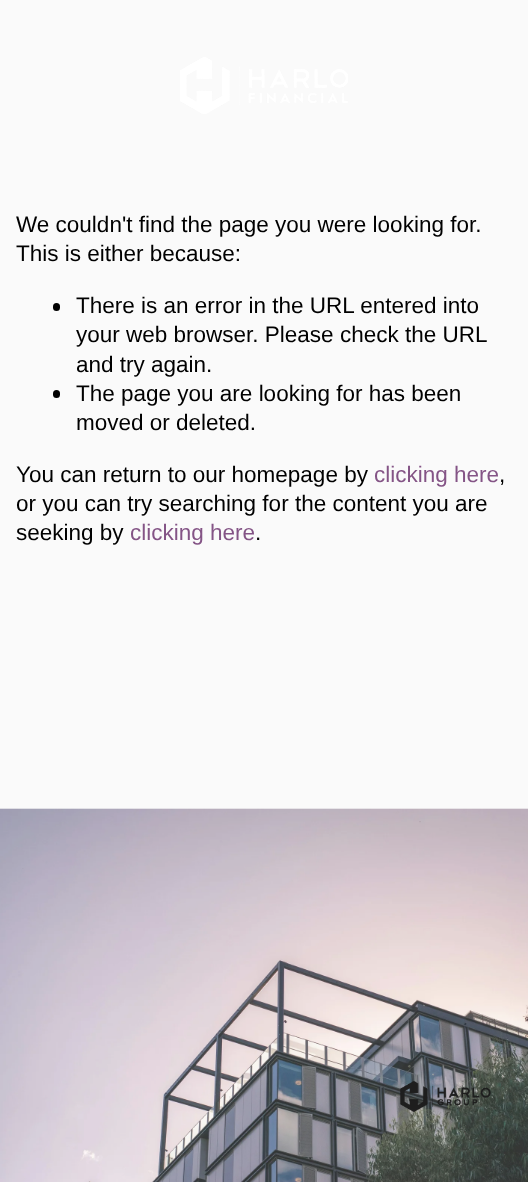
<svg xmlns="http://www.w3.org/2000/svg" width="528" height="1182" viewBox="0 0 528 1182">
  <style>
    .t1 { font: 22.5px Liberation Sans; fill: #000; }
    .t2 { font: 22.5px Liberation Sans; fill: #845486; }
  </style>
  <rect width="100%" height="100%" fill="#fafafa"/>
  <image x="180" y="57" width="168" height="57" href="images/1.png"/>
  <text x="16" y="232" class="t1">We couldn't find the page you were looking for.</text>
  <text x="16" y="261" class="t1">This is either because:</text>
  <rect x="53" y="303" width="7" height="8" rx="3.5" fill="#000"/>
  <text x="76" y="313" class="t1">There is an error in the URL entered into</text>
  <text x="76" y="342" class="t1">your web browser. Please check the URL</text>
  <text x="76" y="372" class="t1">and try again.</text>
  <rect x="53" y="390" width="7" height="8" rx="3.5" fill="#000"/>
  <text x="76" y="401" class="t1">The page you are looking for has been</text>
  <text x="76" y="430" class="t1">moved or deleted.</text>
  <text x="16" y="482" class="t1">You can return to our homepage by</text>
  <text x="374" y="482" class="t2">clicking here</text>
  <text x="499" y="482" class="t1">,</text>
  <text x="16" y="511" class="t1">or you can try searching for the content you are</text>
  <text x="16" y="540" class="t1">seeking by</text>
  <text x="130" y="540" class="t2">clicking here</text>
  <text x="255" y="540" class="t1">.</text>
  <image x="0" y="808" width="528" height="374" href="images/2.png"/>
  <image x="400" y="1081" width="91" height="32" href="images/3.png"/>
</svg>
